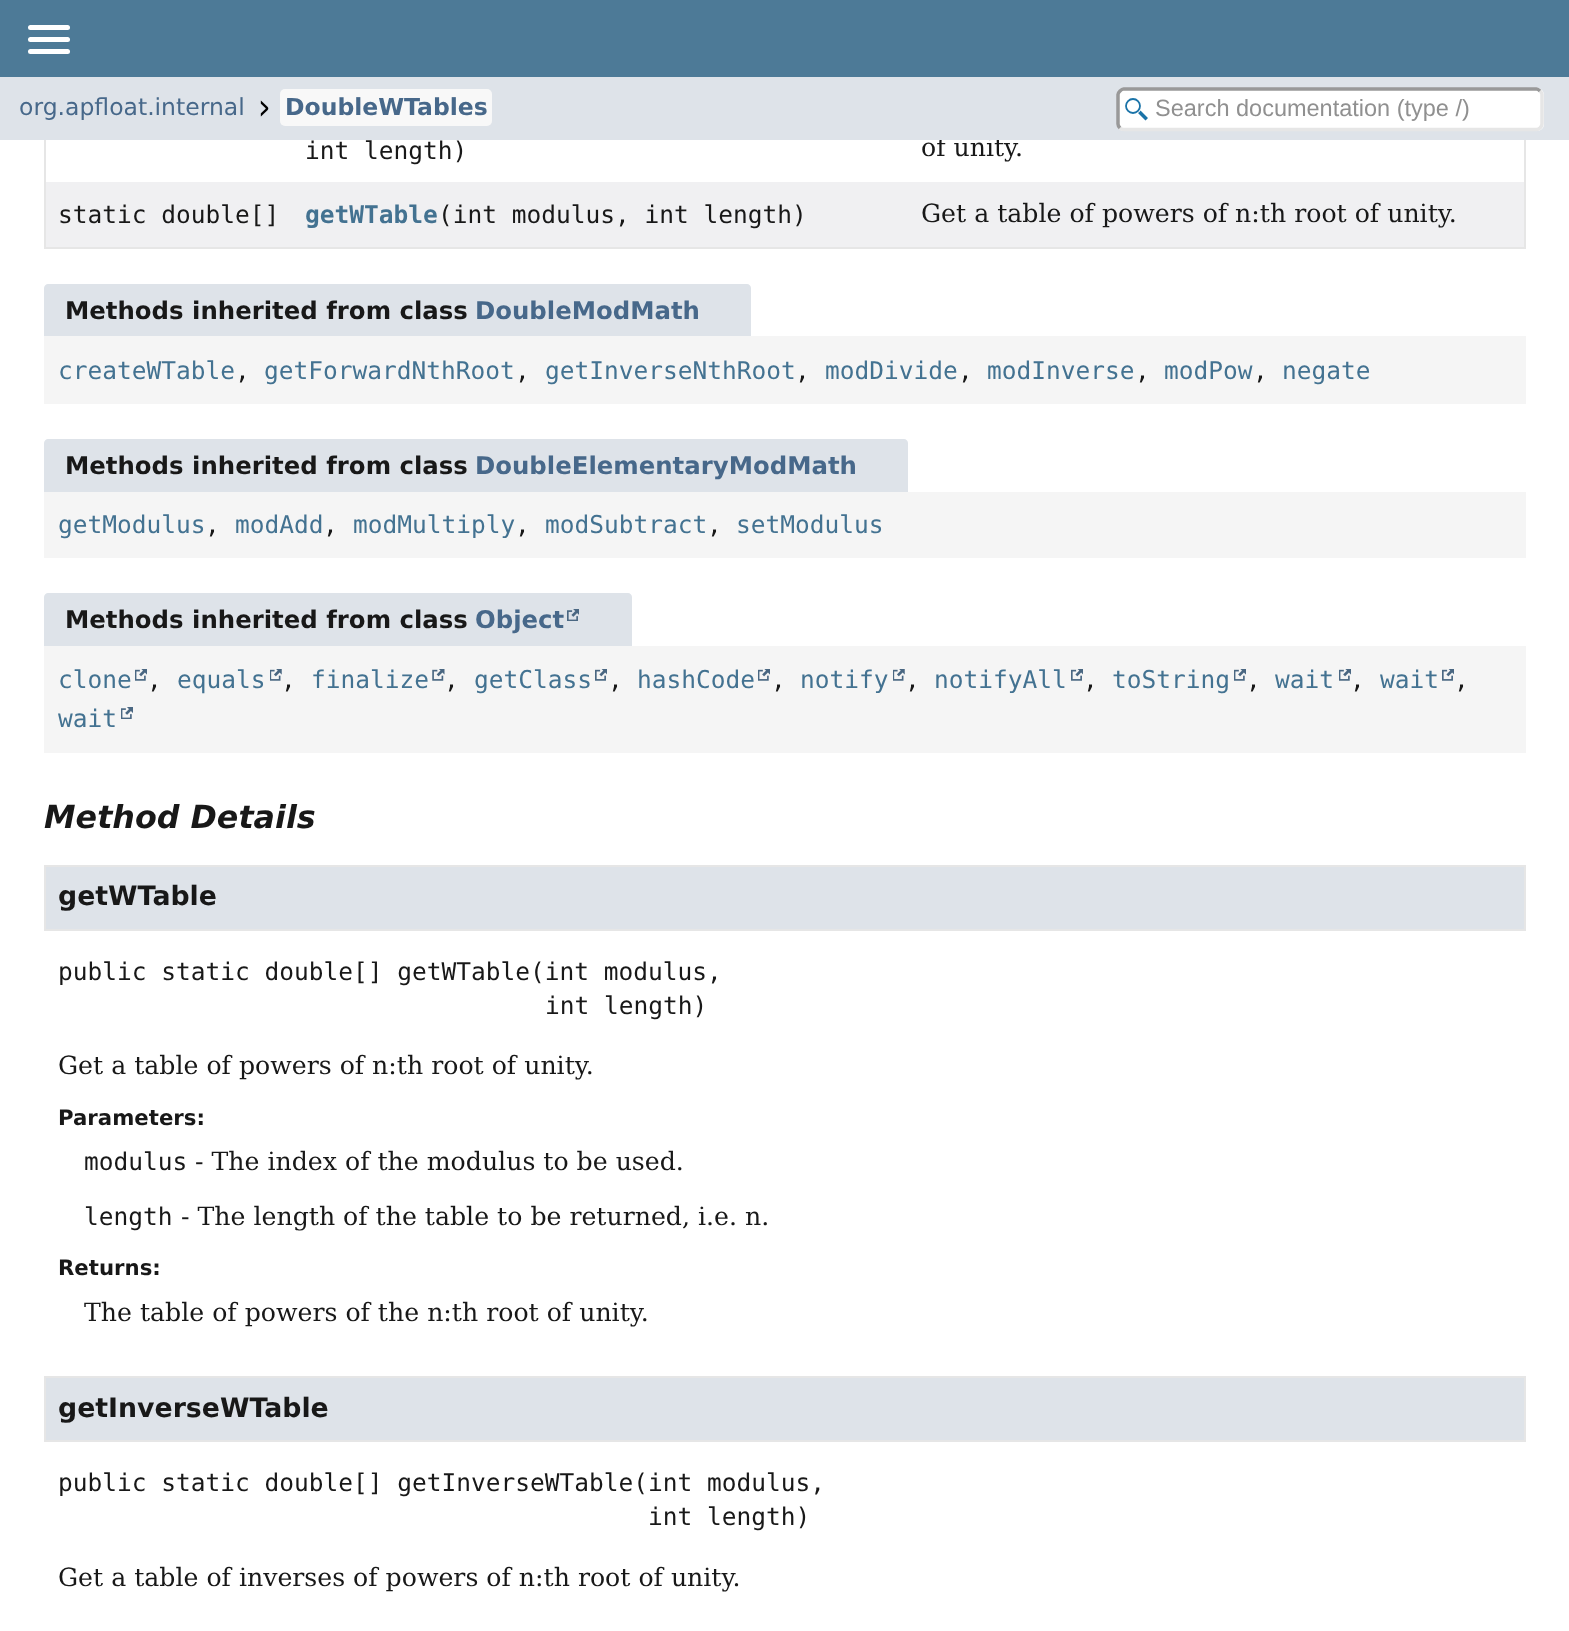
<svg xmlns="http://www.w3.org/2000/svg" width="1569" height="1631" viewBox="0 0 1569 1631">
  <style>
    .t1 { font: 25.2px DejaVu Serif; fill: #181818; }
    .t2 { font: 23.5px DejaVu Sans; fill: #47688a; }
    .t3 { font: bold 23.5px DejaVu Sans; fill: #47688a; }
    .t4 { font: 23.5px Liberation Sans; fill: #909090; }
    .t5 { font: 24.5px DejaVu Sans Mono; fill: #181818; }
    .t6 { font: bold 24.5px DejaVu Sans Mono; fill: #437291; }
    .t7 { font: bold 24.4px DejaVu Sans; fill: #181818; }
    .t8 { font: bold 24.4px DejaVu Sans; fill: #47688a; }
    .t9 { font: 24.5px DejaVu Sans Mono; fill: #437291; }
    .t10 { font: italic bold 31.75px DejaVu Sans; fill: #181818; }
    .t11 { font: bold 26.75px DejaVu Sans; fill: #181818; }
    .t12 { font: bold 21.25px DejaVu Sans; fill: #181818; }
  </style>
  <rect width="100%" height="100%" fill="#fff"/>
  <rect x="0" y="0" width="1569" height="77" fill="#4d7a97"/>
  <rect x="28" y="25" width="42" height="5" rx="2.5" fill="#fff"/>
  <rect x="28" y="37" width="42" height="5" rx="2.5" fill="#fff"/>
  <rect x="28" y="49" width="42" height="5" rx="2.5" fill="#fff"/>
  <text x="921" y="156" class="t1">of unity.</text>
  <rect x="0" y="77" width="1569" height="63" fill="#dee3e9"/>
  <text x="19" y="115" class="t2">org.apfloat.internal</text>
  <image x="260" y="100" width="9" height="17" href="images/1.png"/>
  <rect x="280" y="89" width="212" height="37" rx="5" fill="#f8f8f8"/>
  <text x="285" y="115" class="t3">DoubleWTables</text>
  <rect x="1117" y="88" width="427" height="43" rx="7" fill="#fff"/>
  <path d="M1140.5 110.5C1140 111.5 1139 112.5 1138 113L1145.5 120.5L1148 118Z" fill="#1a73a8"/>
  <circle cx="1133" cy="106" r="7" fill="none" stroke="#1a73a8" stroke-width="1.8"/>
  <path d="M1540 91C1541 92 1542 93 1542 94.5V124C1542 125.5 1541 127 1540 128C1539 129 1538 129.5 1536.5 129.5H1123.5C1122 129.5 1121 129 1120 128" fill="none" stroke="#e6e6e6" stroke-width="3.5"/>
  <path d="M1120 128C1119 127 1118 125.5 1118 124V94.5C1118 93 1119 92 1120 91C1121 90 1122 89 1123.5 89H1536.5C1538 89 1539 90 1540 91" fill="none" stroke="#999" stroke-width="3.5"/>
  <text x="1155" y="116" class="t4">Search documentation (type /)</text>
  <rect x="1524" y="140" width="2" height="109" fill="#e6e6e6"/>
  <rect x="44" y="247" width="1482" height="2" fill="#e6e6e6"/>
  <rect x="44" y="140" width="2" height="109" fill="#e6e6e6"/>
  <text x="305" y="159" class="t5">int length)</text>
  <rect x="46" y="182" width="1478" height="65" fill="#f0f0f2"/>
  <text x="58" y="223" class="t5">static double[]</text>
  <text x="305" y="223" class="t6">getWTable</text>
  <text x="438" y="223" class="t5">(int modulus, int length)</text>
  <text x="921" y="222" class="t1">Get a table of powers of n:th root of unity.</text>
  <path d="M48 284H747C749 284 751 286 751 288V336H44V288C44 286 46 284 48 284Z" fill="#dee3e9"/>
  <text x="65" y="319" class="t7">Methods inherited from class</text>
  <text x="475" y="319" class="t8">DoubleModMath</text>
  <rect x="44" y="336" width="1482" height="68" fill="#f5f5f5"/>
  <text x="58" y="379" class="t9">createWTable</text>
  <text x="235" y="379" class="t5">,</text>
  <text x="264" y="379" class="t9">getForwardNthRoot</text>
  <text x="515" y="379" class="t5">,</text>
  <text x="545" y="379" class="t9">getInverseNthRoot</text>
  <text x="795" y="379" class="t5">,</text>
  <text x="825" y="379" class="t9">modDivide</text>
  <text x="958" y="379" class="t5">,</text>
  <text x="987" y="379" class="t9">modInverse</text>
  <text x="1135" y="379" class="t5">,</text>
  <text x="1164" y="379" class="t9">modPow</text>
  <text x="1253" y="379" class="t5">,</text>
  <text x="1282" y="379" class="t9">negate</text>
  <path d="M48 439H904C906 439 908 441 908 443V492H44V443C44 441 46 439 48 439Z" fill="#dee3e9"/>
  <text x="65" y="474" class="t7">Methods inherited from class</text>
  <text x="475" y="474" class="t8">DoubleElementaryModMath</text>
  <rect x="44" y="492" width="1482" height="66" fill="#f5f5f5"/>
  <text x="58" y="533" class="t9">getModulus</text>
  <text x="205" y="533" class="t5">,</text>
  <text x="235" y="533" class="t9">modAdd</text>
  <text x="323" y="533" class="t5">,</text>
  <text x="353" y="533" class="t9">modMultiply</text>
  <text x="515" y="533" class="t5">,</text>
  <text x="545" y="533" class="t9">modSubtract</text>
  <text x="707" y="533" class="t5">,</text>
  <text x="736" y="533" class="t9">setModulus</text>
  <path d="M48 593H628C630 593 632 595 632 597V646H44V597C44 595 46 593 48 593Z" fill="#dee3e9"/>
  <text x="65" y="628" class="t7">Methods inherited from class</text>
  <text x="475" y="628" class="t8">Object</text>
  <image x="567" y="609" width="12" height="12" href="images/2.png"/>
  <rect x="44" y="646" width="1482" height="107" fill="#f5f5f5"/>
  <text x="58" y="688" class="t9">clone</text>
  <image x="135" y="669" width="12" height="12" href="images/3.png"/>
  <text x="147" y="688" class="t5">,</text>
  <text x="177" y="688" class="t9">equals</text>
  <image x="270" y="669" width="12" height="12" href="images/4.png"/>
  <text x="281" y="688" class="t5">,</text>
  <text x="311" y="688" class="t9">finalize</text>
  <image x="432" y="669" width="13" height="12" href="images/5.png"/>
  <text x="444" y="688" class="t5">,</text>
  <text x="474" y="688" class="t9">getClass</text>
  <image x="595" y="669" width="12" height="12" href="images/6.png"/>
  <text x="608" y="688" class="t5">,</text>
  <text x="637" y="688" class="t9">hashCode</text>
  <image x="758" y="669" width="12" height="12" href="images/3.png"/>
  <text x="771" y="688" class="t5">,</text>
  <text x="800" y="688" class="t9">notify</text>
  <image x="893" y="669" width="12" height="12" href="images/4.png"/>
  <text x="905" y="688" class="t5">,</text>
  <text x="934" y="688" class="t9">notifyAll</text>
  <image x="1071" y="669" width="12" height="12" href="images/6.png"/>
  <text x="1083" y="688" class="t5">,</text>
  <text x="1112" y="688" class="t9">toString</text>
  <image x="1234" y="669" width="12" height="12" href="images/3.png"/>
  <text x="1246" y="688" class="t5">,</text>
  <text x="1275" y="688" class="t9">wait</text>
  <image x="1339" y="669" width="12" height="12" href="images/3.png"/>
  <text x="1350" y="688" class="t5">,</text>
  <text x="1380" y="688" class="t9">wait</text>
  <image x="1442" y="669" width="12" height="12" href="images/6.png"/>
  <text x="1454" y="688" class="t5">,</text>
  <text x="58" y="727" class="t9">wait</text>
  <image x="121" y="707" width="12" height="12" href="images/7.png"/>
  <text x="44" y="828" class="t10">Method Details</text>
  <rect x="45" y="866" width="1480" height="64" fill="#dee3e9" stroke="#e6e6e6" stroke-width="2"/>
  <text x="58" y="905" class="t11">getWTable</text>
  <text x="58" y="980" class="t5">public static double[] getWTable(int modulus,</text>
  <text x="545" y="1014" class="t5">int length)</text>
  <text x="58" y="1074" class="t1">Get a table of powers of n:th root of unity.</text>
  <text x="58" y="1125" class="t12">Parameters:</text>
  <text x="84" y="1170" class="t5">modulus</text>
  <text x="195" y="1170" class="t1">- The index of the modulus to be used.</text>
  <text x="84" y="1225" class="t5">length</text>
  <text x="181" y="1225" class="t1">- The length of the table to be returned, i.e. n.</text>
  <text x="58" y="1275" class="t12">Returns:</text>
  <text x="84" y="1321" class="t1">The table of powers of the n:th root of unity.</text>
  <rect x="45" y="1377" width="1480" height="64" fill="#dee3e9" stroke="#e6e6e6" stroke-width="2"/>
  <text x="58" y="1417" class="t11">getInverseWTable</text>
  <text x="58" y="1491" class="t5">public static double[] getInverseWTable(int modulus,</text>
  <text x="648" y="1525" class="t5">int length)</text>
  <text x="58" y="1586" class="t1">Get a table of inverses of powers of n:th root of unity.</text>
</svg>
